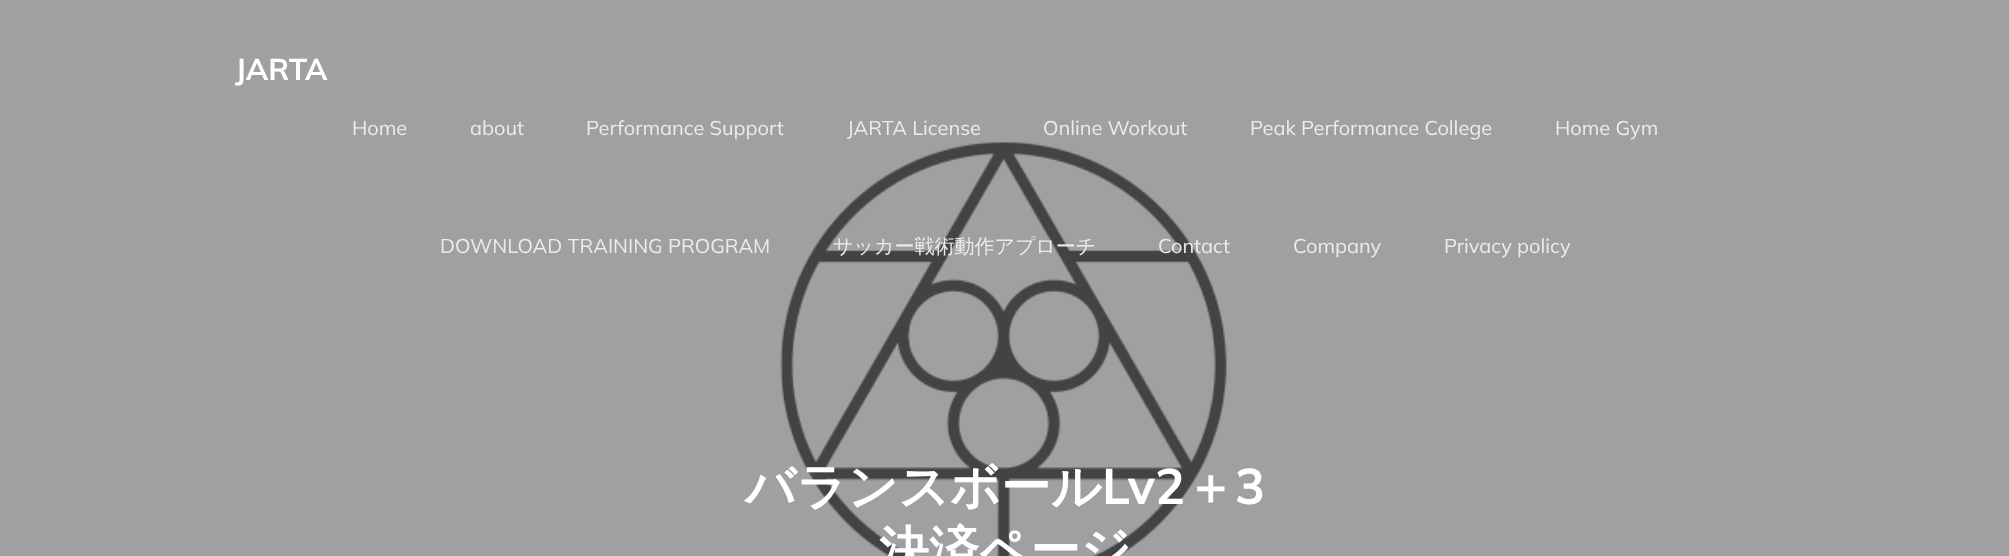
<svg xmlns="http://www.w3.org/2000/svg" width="2009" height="556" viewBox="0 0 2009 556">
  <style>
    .t1 { font: bold 30px Mulish; fill: #fff; }
    .t2 { font: 20px Mulish; fill: #ececed; }
    .t3 { font: 500 20px WenQuanYi Zen Hei; fill: #ececed; }
    .t4 { font: bold 50px WenQuanYi Zen Hei; fill: #fff; }
    .t5 { font: bold 50px Mulish; fill: #fff; }
  </style>
  <rect width="100%" height="100%" fill="#a0a0a3"/>
  <text x="235" y="80" class="t1">JARTA</text>
  <text x="352" y="135" class="t2">Home</text>
  <text x="470" y="135" class="t2">about</text>
  <text x="586" y="135" class="t2">Performance Support</text>
  <text x="847" y="135" class="t2">JARTA License</text>
  <text x="1043" y="135" class="t2">Online Workout</text>
  <text x="1250" y="135" class="t2">Peak Performance College</text>
  <text x="1555" y="135" class="t2">Home Gym</text>
  <text x="440" y="253" class="t2">DOWNLOAD TRAINING PROGRAM</text>
  <image x="780" y="142" width="447" height="414" href="images/1.png"/>
  <text x="833" y="253" class="t3">サッカー戦術動作アプローチ</text>
  <text x="1158" y="253" class="t2">Contact</text>
  <text x="1293" y="253" class="t2">Company</text>
  <text x="1444" y="253" class="t2">Privacy policy</text>
  <text x="745" y="504" class="t4">バランスボール</text>
  <text x="1102" y="504" class="t5">Lv2</text>
  <text x="1185" y="504" class="t4">＋</text>
  <text x="1235" y="504" class="t5">3</text>
  <text x="879" y="567" class="t4">決済ページ</text>
</svg>
